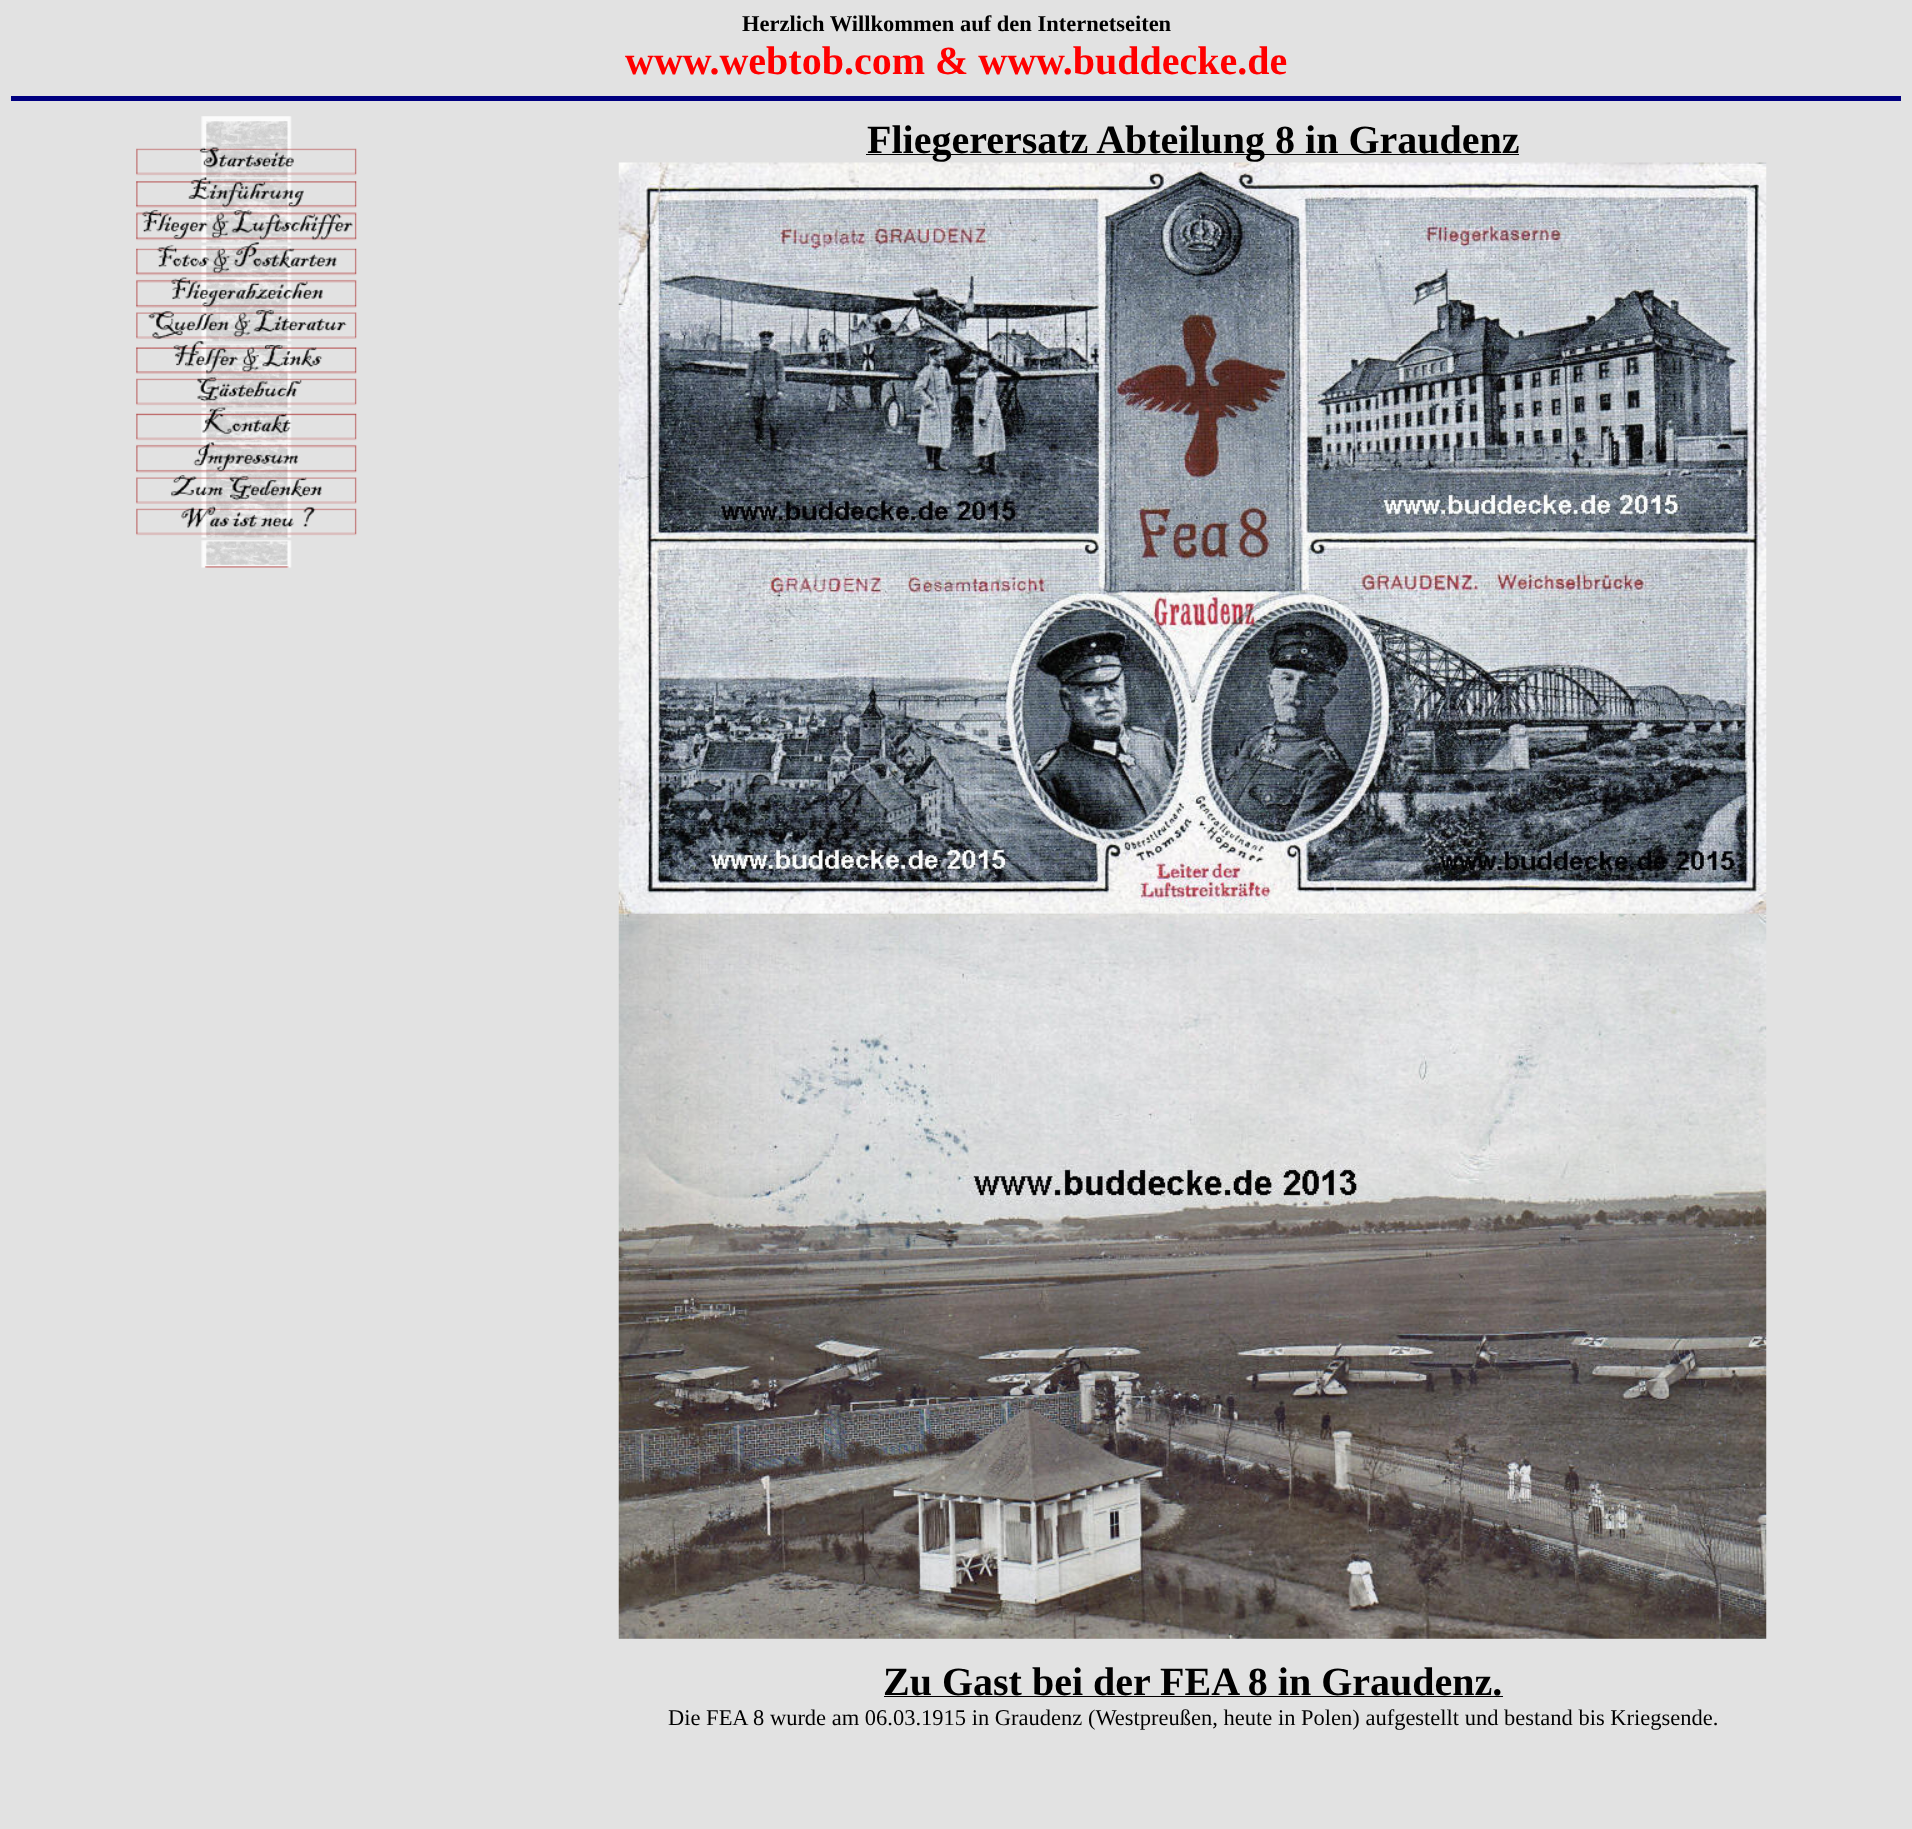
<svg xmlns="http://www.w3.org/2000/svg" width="1912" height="1829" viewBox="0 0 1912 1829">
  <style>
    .t1 { font: bold 22.5px Liberation Serif; fill: #000; }
    .t2 { font: bold 40px Liberation Serif; fill: #f00; }
    .t3 { font: bold 40px Liberation Serif; fill: #000; }
    .t4 { font: 22.5px Liberation Serif; fill: #000; }
  </style>
  <rect width="100%" height="100%" fill="#e2e2e2"/>
  <text x="742" y="31" class="t1">Herzlich Willkommen auf den Internetseiten</text>
  <text x="625" y="74" class="t2">www.webtob.com &amp; www.buddecke.de</text>
  <rect x="11" y="96" width="1890" height="5" fill="#000080"/>
  <image x="201" y="116" width="91" height="31" href="images/1.png"/>
  <image x="136" y="146" width="221" height="32" href="images/2.png"/>
  <image x="136" y="177" width="221" height="33" href="images/3.png"/>
  <image x="136" y="210" width="221" height="33" href="images/4.png"/>
  <image x="136" y="242" width="221" height="36" href="images/5.png"/>
  <image x="136" y="277" width="221" height="33" href="images/6.png"/>
  <image x="136" y="310" width="221" height="32" href="images/7.png"/>
  <image x="136" y="341" width="221" height="36" href="images/8.png"/>
  <image x="136" y="376" width="221" height="32" href="images/9.png"/>
  <image x="136" y="407" width="221" height="36" href="images/10.png"/>
  <image x="136" y="442" width="221" height="33" href="images/11.png"/>
  <image x="136" y="475" width="221" height="32" href="images/12.png"/>
  <image x="136" y="506" width="221" height="32" href="images/13.png"/>
  <image x="201" y="540" width="91" height="28" href="images/14.png"/>
  <rect x="866" y="154" width="653" height="1" fill="#000"/>
  <text x="867" y="153" class="t3">Fliegerersatz Abteilung 8 in Graudenz</text>
  <image x="618" y="162" width="1149" height="752" href="images/15.png"/>
  <image x="618" y="913" width="1149" height="726" href="images/16.png"/>
  <text x="883" y="1695" class="t3">Zu Gast bei der FEA 8 in Graudenz.</text>
  <rect x="884" y="1696" width="619" height="1" fill="#000"/>
  <text x="668" y="1725" class="t4">Die FEA 8 wurde am 06.03.1915 in Graudenz (Westpreußen, heute in Polen) aufgestellt und bestand bis Kriegsende.</text>
</svg>
